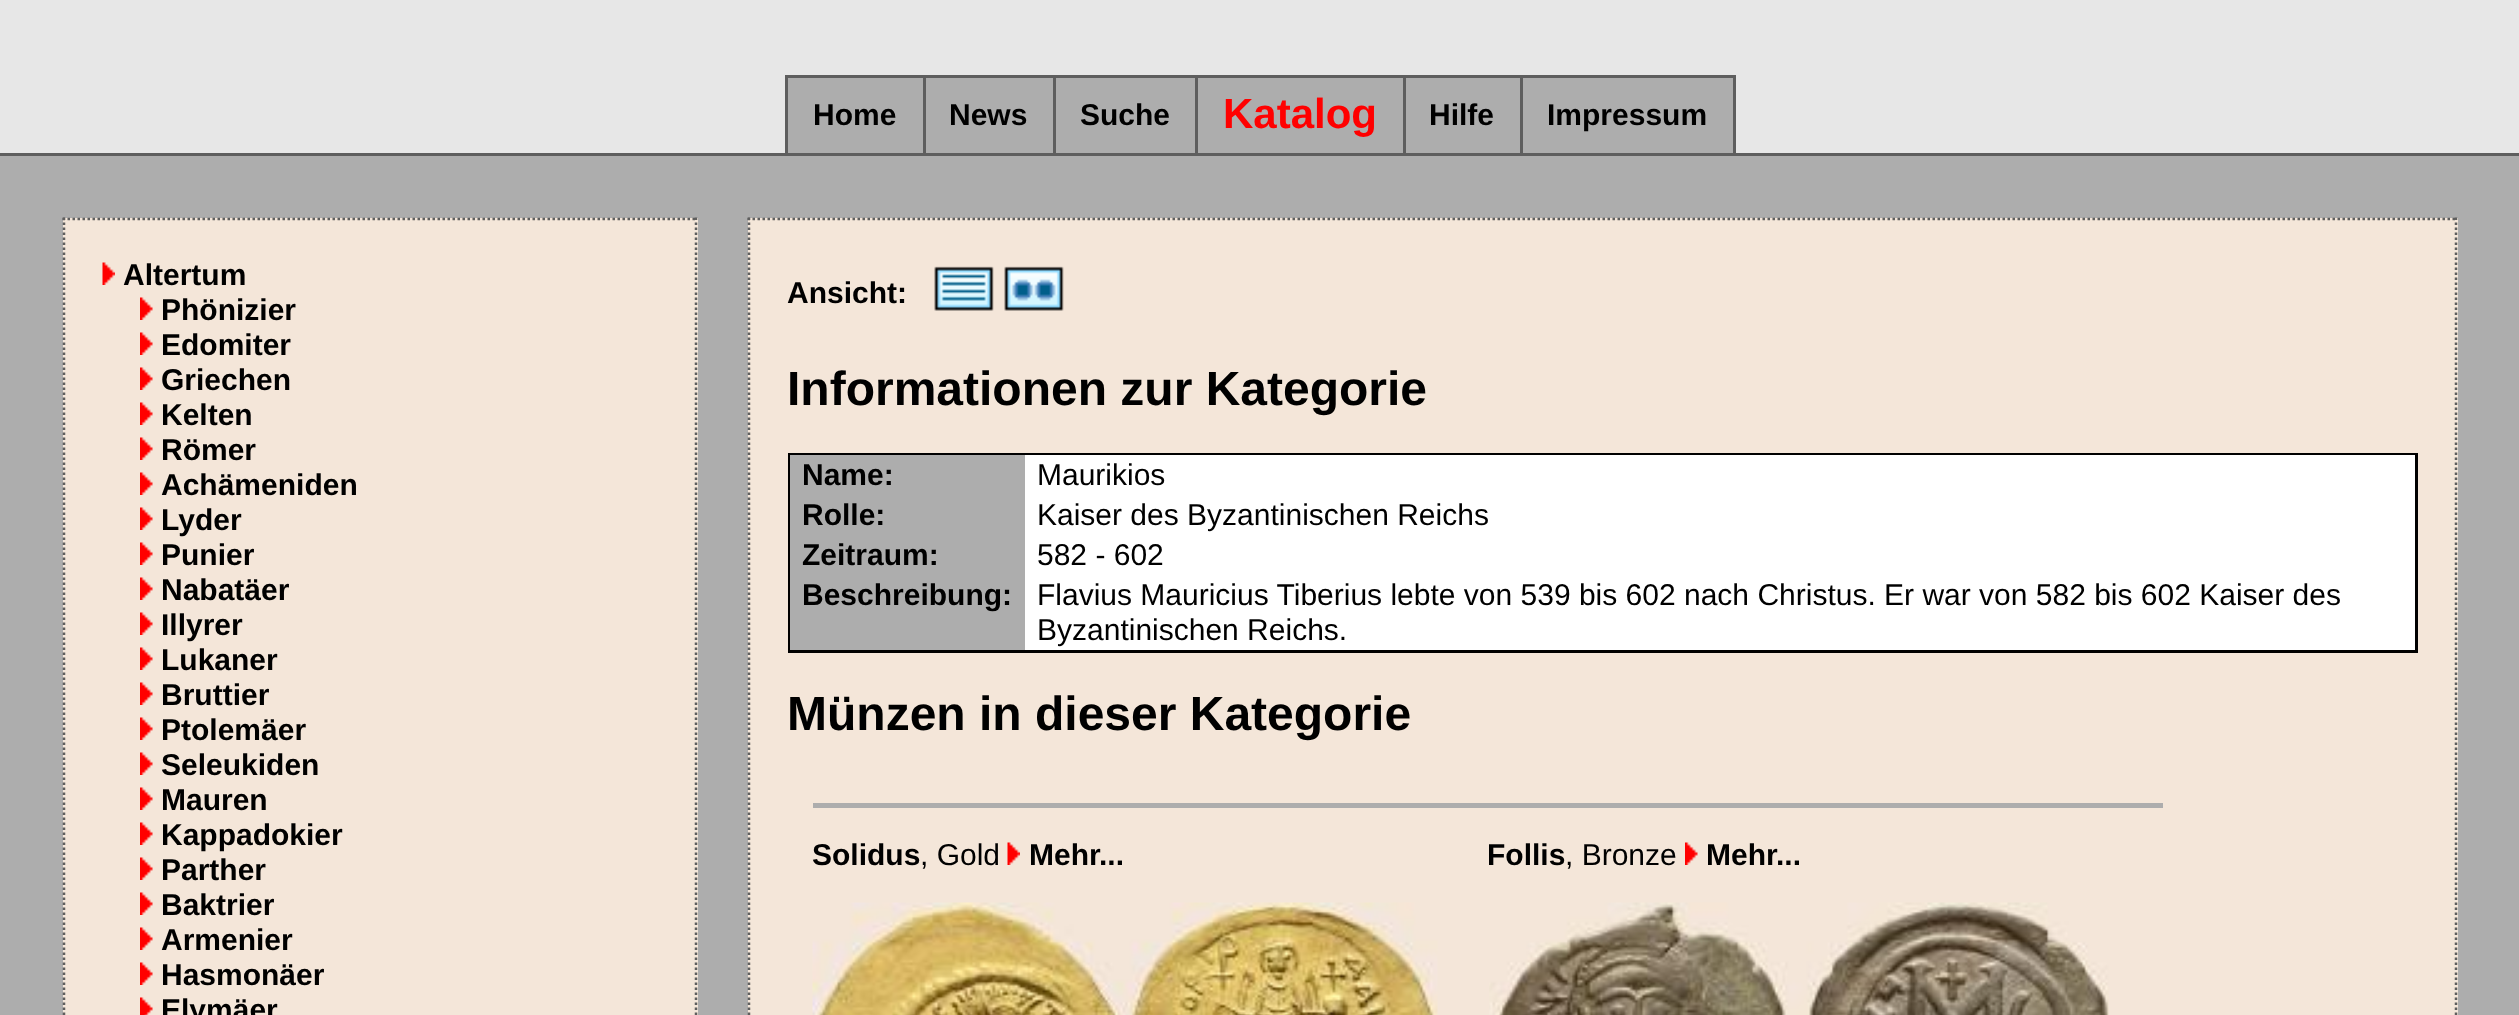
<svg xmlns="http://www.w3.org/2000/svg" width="2519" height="1015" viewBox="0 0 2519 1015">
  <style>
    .t1 { font: bold 30px Liberation Sans; fill: #000; }
    .t2 { font: bold 42px Liberation Sans; fill: #f00; }
    .t3 { font: bold 48px Liberation Sans; fill: #000; }
    .t4 { font: 30px Liberation Sans; fill: #000; }
  </style>
  <rect width="100%" height="100%" fill="#e7e7e7"/>
  <rect x="788" y="78" width="135" height="75" fill="#adadad"/>
  <rect x="1520" y="75" width="215" height="3" fill="#5e5e5e"/>
  <rect x="1520" y="75" width="3" height="80" fill="#5e5e5e"/>
  <rect x="1403" y="75" width="120" height="3" fill="#5e5e5e"/>
  <rect x="1403" y="75" width="3" height="80" fill="#5e5e5e"/>
  <rect x="1195" y="75" width="210" height="3" fill="#5e5e5e"/>
  <rect x="1195" y="75" width="3" height="80" fill="#5e5e5e"/>
  <rect x="1053" y="75" width="145" height="3" fill="#5e5e5e"/>
  <rect x="1053" y="75" width="3" height="80" fill="#5e5e5e"/>
  <rect x="923" y="75" width="132" height="3" fill="#5e5e5e"/>
  <rect x="923" y="75" width="3" height="80" fill="#5e5e5e"/>
  <rect x="785" y="75" width="140" height="3" fill="#5e5e5e"/>
  <rect x="785" y="75" width="3" height="80" fill="#5e5e5e"/>
  <text x="813" y="125" class="t1">Home</text>
  <rect x="926" y="78" width="127" height="75" fill="#adadad"/>
  <text x="949" y="125" class="t1">News</text>
  <rect x="1056" y="78" width="139" height="75" fill="#adadad"/>
  <text x="1080" y="125" class="t1">Suche</text>
  <rect x="1198" y="78" width="205" height="75" fill="#adadad"/>
  <text x="1223" y="128" class="t2">Katalog</text>
  <rect x="1406" y="78" width="114" height="75" fill="#adadad"/>
  <text x="1429" y="125" class="t1">Hilfe</text>
  <rect x="1523" y="78" width="210" height="75" fill="#adadad"/>
  <rect x="1733" y="75" width="3" height="80" fill="#5e5e5e"/>
  <text x="1547" y="125" class="t1">Impressum</text>
  <rect x="0" y="156" width="2519" height="859" fill="#adadad"/>
  <rect x="0" y="153" width="2519" height="3" fill="#5e5e5e"/>
  <rect x="63" y="218" width="635" height="797" fill="#f4e6d9"/>
  <path d="M62.5 219H697.5" fill="none" stroke="#5e5e5e" stroke-width="2.5" stroke-dasharray="2.5 2.5"/>
  <path d="M696 217.5V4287.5" fill="none" stroke="#5e5e5e" stroke-width="2.5" stroke-dasharray="2.5 2.5"/>
  <path d="M64 217.5V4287.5" fill="none" stroke="#5e5e5e" stroke-width="2.5" stroke-dasharray="2.5 2.5"/>
  <image x="102" y="262" width="13" height="23" href="images/1.png"/>
  <text x="123" y="285" class="t1">Altertum</text>
  <image x="140" y="297" width="13" height="23" href="images/2.png"/>
  <text x="161" y="320" class="t1">Phönizier</text>
  <image x="140" y="332" width="13" height="23" href="images/2.png"/>
  <text x="161" y="355" class="t1">Edomiter</text>
  <image x="140" y="367" width="13" height="23" href="images/2.png"/>
  <text x="161" y="390" class="t1">Griechen</text>
  <image x="140" y="402" width="13" height="23" href="images/2.png"/>
  <text x="161" y="425" class="t1">Kelten</text>
  <image x="140" y="437" width="13" height="23" href="images/2.png"/>
  <text x="161" y="460" class="t1">Römer</text>
  <image x="140" y="472" width="13" height="23" href="images/2.png"/>
  <text x="161" y="495" class="t1">Achämeniden</text>
  <image x="140" y="507" width="13" height="23" href="images/2.png"/>
  <text x="161" y="530" class="t1">Lyder</text>
  <image x="140" y="542" width="13" height="23" href="images/2.png"/>
  <text x="161" y="565" class="t1">Punier</text>
  <image x="140" y="577" width="13" height="23" href="images/3.png"/>
  <text x="161" y="600" class="t1">Nabatäer</text>
  <image x="140" y="612" width="13" height="23" href="images/2.png"/>
  <text x="161" y="635" class="t1">Illyrer</text>
  <image x="140" y="647" width="13" height="23" href="images/2.png"/>
  <text x="161" y="670" class="t1">Lukaner</text>
  <image x="140" y="682" width="13" height="23" href="images/2.png"/>
  <text x="161" y="705" class="t1">Bruttier</text>
  <image x="140" y="717" width="13" height="23" href="images/2.png"/>
  <text x="161" y="740" class="t1">Ptolemäer</text>
  <image x="140" y="752" width="13" height="23" href="images/2.png"/>
  <text x="161" y="775" class="t1">Seleukiden</text>
  <image x="140" y="787" width="13" height="23" href="images/2.png"/>
  <text x="161" y="810" class="t1">Mauren</text>
  <image x="140" y="822" width="13" height="23" href="images/2.png"/>
  <text x="161" y="845" class="t1">Kappadokier</text>
  <image x="140" y="857" width="13" height="23" href="images/2.png"/>
  <text x="161" y="880" class="t1">Parther</text>
  <image x="140" y="892" width="13" height="23" href="images/2.png"/>
  <text x="161" y="915" class="t1">Baktrier</text>
  <image x="140" y="927" width="13" height="23" href="images/2.png"/>
  <text x="161" y="950" class="t1">Armenier</text>
  <image x="140" y="962" width="13" height="23" href="images/2.png"/>
  <text x="161" y="985" class="t1">Hasmonäer</text>
  <image x="140" y="997" width="13" height="18" href="images/4.png"/>
  <text x="161" y="1020" class="t1">Elymäer</text>
  <rect x="748" y="218" width="1710" height="797" fill="#f4e6d9"/>
  <path d="M747.5 219H2457.5" fill="none" stroke="#5e5e5e" stroke-width="2.5" stroke-dasharray="2.5 2.5"/>
  <path d="M2456 217.5V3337.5" fill="none" stroke="#5e5e5e" stroke-width="2.5" stroke-dasharray="2.5 2.5"/>
  <path d="M749 217.5V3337.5" fill="none" stroke="#5e5e5e" stroke-width="2.5" stroke-dasharray="2.5 2.5"/>
  <text x="787" y="303" class="t1">Ansicht:</text>
  <image x="934" y="266" width="60" height="45" href="images/5.png"/>
  <image x="1004" y="266" width="60" height="45" href="images/6.png"/>
  <text x="787" y="405" class="t3">Informationen zur Kategorie</text>
  <rect x="789.5" y="454.5" width="1627" height="197" fill="none" stroke="#000" stroke-width="3"/>
  <rect x="790" y="455" width="235" height="195" fill="#adadad"/>
  <text x="802" y="485" class="t1">Name:</text>
  <rect x="1025" y="455" width="1390" height="195" fill="#fff"/>
  <text x="1037" y="485" class="t4">Maurikios</text>
  <text x="802" y="525" class="t1">Rolle:</text>
  <text x="1037" y="525" class="t4">Kaiser des Byzantinischen Reichs</text>
  <text x="802" y="565" class="t1">Zeitraum:</text>
  <text x="1037" y="565" class="t4">582 - 602</text>
  <text x="802" y="605" class="t1">Beschreibung:</text>
  <text x="1037" y="605" class="t4">Flavius Mauricius Tiberius lebte von 539 bis 602 nach Christus. Er war von 582 bis 602 Kaiser des</text>
  <text x="1037" y="640" class="t4">Byzantinischen Reichs.</text>
  <text x="787" y="730" class="t3">Münzen in dieser Kategorie</text>
  <rect x="813" y="803" width="1350" height="5" fill="#adadad"/>
  <text x="812" y="865" class="t1">Solidus</text>
  <text x="920" y="865" class="t4">, Gold</text>
  <image x="1007" y="842" width="13" height="23" href="images/7.png"/>
  <text x="1029" y="865" class="t1">Mehr...</text>
  <image x="812" y="902" width="626" height="113" href="images/8.png"/>
  <text x="1487" y="865" class="t1">Follis</text>
  <text x="1565" y="865" class="t4">, Bronze</text>
  <image x="1685" y="842" width="13" height="23" href="images/9.png"/>
  <text x="1706" y="865" class="t1">Mehr...</text>
  <image x="1489" y="902" width="620" height="113" href="images/10.png"/>
</svg>
